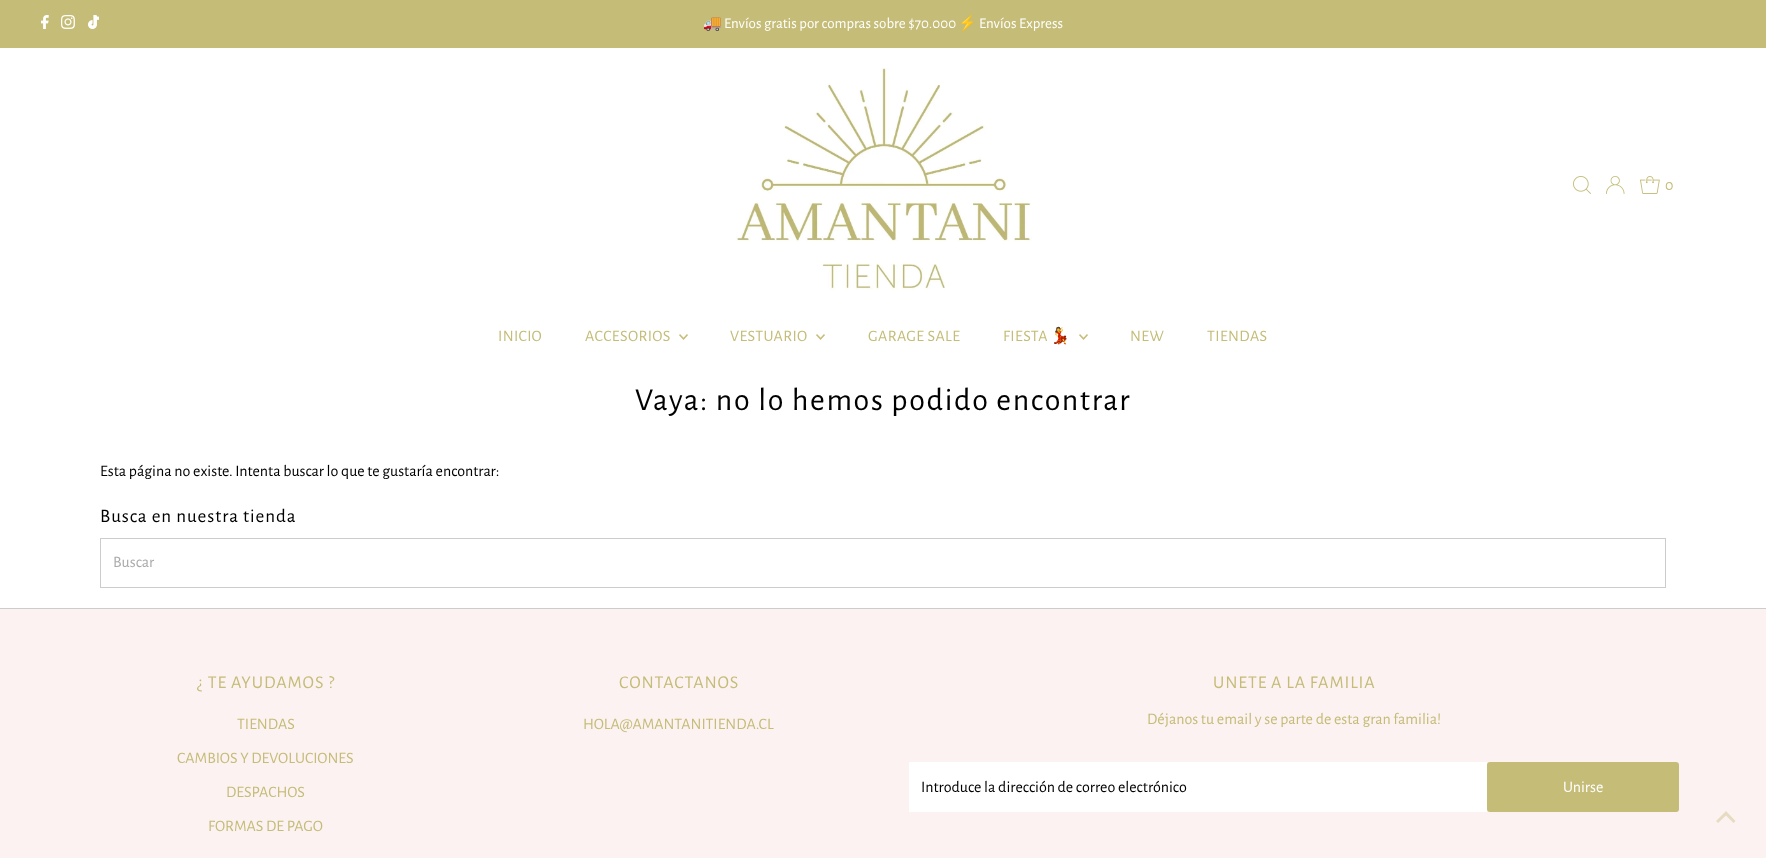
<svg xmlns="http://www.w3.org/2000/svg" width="1766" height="858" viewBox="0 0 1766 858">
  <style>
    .t1 { font: 15px Noto Color Emoji; fill: #fff; }
    .t2 { font: 15px Alegreya Sans; fill: #fff; }
    .t3 { font: 16px Alegreya Sans; fill: #c4bc77; }
    .t4 { font: 16px Alegreya Sans; letter-spacing: 0.4px; fill: #c4bc77; }
    .t5 { font: 16px Noto Color Emoji; letter-spacing: 0.4px; fill: #c4bc77; }
    .t6 { font: 32px Alegreya Sans; letter-spacing: 1.6px; fill: #000; }
    .t7 { font: 16px Alegreya Sans; fill: #000; }
    .t8 { font: 19px Alegreya Sans; letter-spacing: 0.95px; fill: #000; }
    .t9 { font: 16px Alegreya Sans; fill: #aaa; }
    .t10 { font: 18px Alegreya Sans; letter-spacing: 0.9px; fill: #c4bc77; }
    .t11 { font: 16px Alegreya Sans; fill: #fff; }
  </style>
  <rect width="100%" height="100%" fill="#fff"/>
  <rect x="0" y="0" width="1766" height="48" fill="#c4bc77"/>
  <image x="41" y="15" width="8" height="14" href="images/1.png"/>
  <image x="61" y="15" width="14" height="14" href="images/2.png"/>
  <image x="88" y="15" width="11" height="14" href="images/3.png"/>
  <text x="703" y="28" class="t1">🚚</text>
  <text x="724" y="28" class="t2">Envíos gratis por compras sobre $70.000</text>
  <text x="958" y="28" class="t1">⚡</text>
  <text x="979" y="28" class="t2">Envíos Express</text>
  <image x="736" y="68" width="296" height="222" href="images/4.png"/>
  <image x="1573" y="176" width="18" height="18" href="images/5.png"/>
  <image x="1606" y="176" width="19" height="18" href="images/6.png"/>
  <image x="1640" y="176" width="20" height="18" href="images/7.png"/>
  <text x="1665" y="190" class="t3">0</text>
  <text x="498" y="341" class="t4">INICIO</text>
  <text x="585" y="341" class="t4">ACCESORIOS</text>
  <image x="679" y="334" width="9" height="6" href="images/8.png"/>
  <text x="730" y="341" class="t4">VESTUARIO</text>
  <image x="816" y="334" width="9" height="6" href="images/8.png"/>
  <text x="868" y="341" class="t4">GARAGE SALE</text>
  <text x="1003" y="341" class="t4">FIESTA</text>
  <text x="1050" y="341" class="t5">💃</text>
  <image x="1079" y="334" width="9" height="6" href="images/8.png"/>
  <text x="1130" y="341" class="t4">NEW</text>
  <text x="1207" y="341" class="t4">TIENDAS</text>
  <text x="635" y="410" class="t6">Vaya: no lo hemos podido encontrar</text>
  <text x="100" y="476" class="t7">Esta página no existe. Intenta buscar lo que te gustaría encontrar:</text>
  <text x="100" y="522" class="t8">Busca en nuestra tienda</text>
  <rect x="100.5" y="538.5" width="1565" height="49" fill="none" stroke="#ccc"/>
  <text x="113" y="567" class="t9">Buscar</text>
  <rect x="0" y="609" width="1766" height="249" fill="#fdf2f2"/>
  <rect x="0" y="608" width="1766" height="1" fill="#ccc"/>
  <text x="197" y="688" class="t10">¿ TE AYUDAMOS ?</text>
  <text x="237" y="729" class="t3">TIENDAS</text>
  <text x="177" y="763" class="t3">CAMBIOS Y DEVOLUCIONES</text>
  <text x="226" y="797" class="t3">DESPACHOS</text>
  <text x="208" y="831" class="t3">FORMAS DE PAGO</text>
  <text x="619" y="688" class="t10">CONTACTANOS</text>
  <text x="583" y="729" class="t3">HOLA@AMANTANITIENDA.CL</text>
  <text x="1213" y="688" class="t10">UNETE A LA FAMILIA</text>
  <text x="1147" y="724" class="t3">Déjanos tu email y se parte de esta gran familia!</text>
  <rect x="909" y="762" width="578" height="50" fill="#fff"/>
  <text x="921" y="792" class="t7">Introduce la dirección de correo electrónico</text>
  <rect x="1487" y="762" width="192" height="50" rx="3" fill="#c4bc77"/>
  <text x="1563" y="792" class="t11">Unirse</text>
  <path d="M1726 811L1716 821L1718 823L1726 815.5L1733.5 823L1735.5 821Z" fill="#e6dcc1"/>
</svg>
